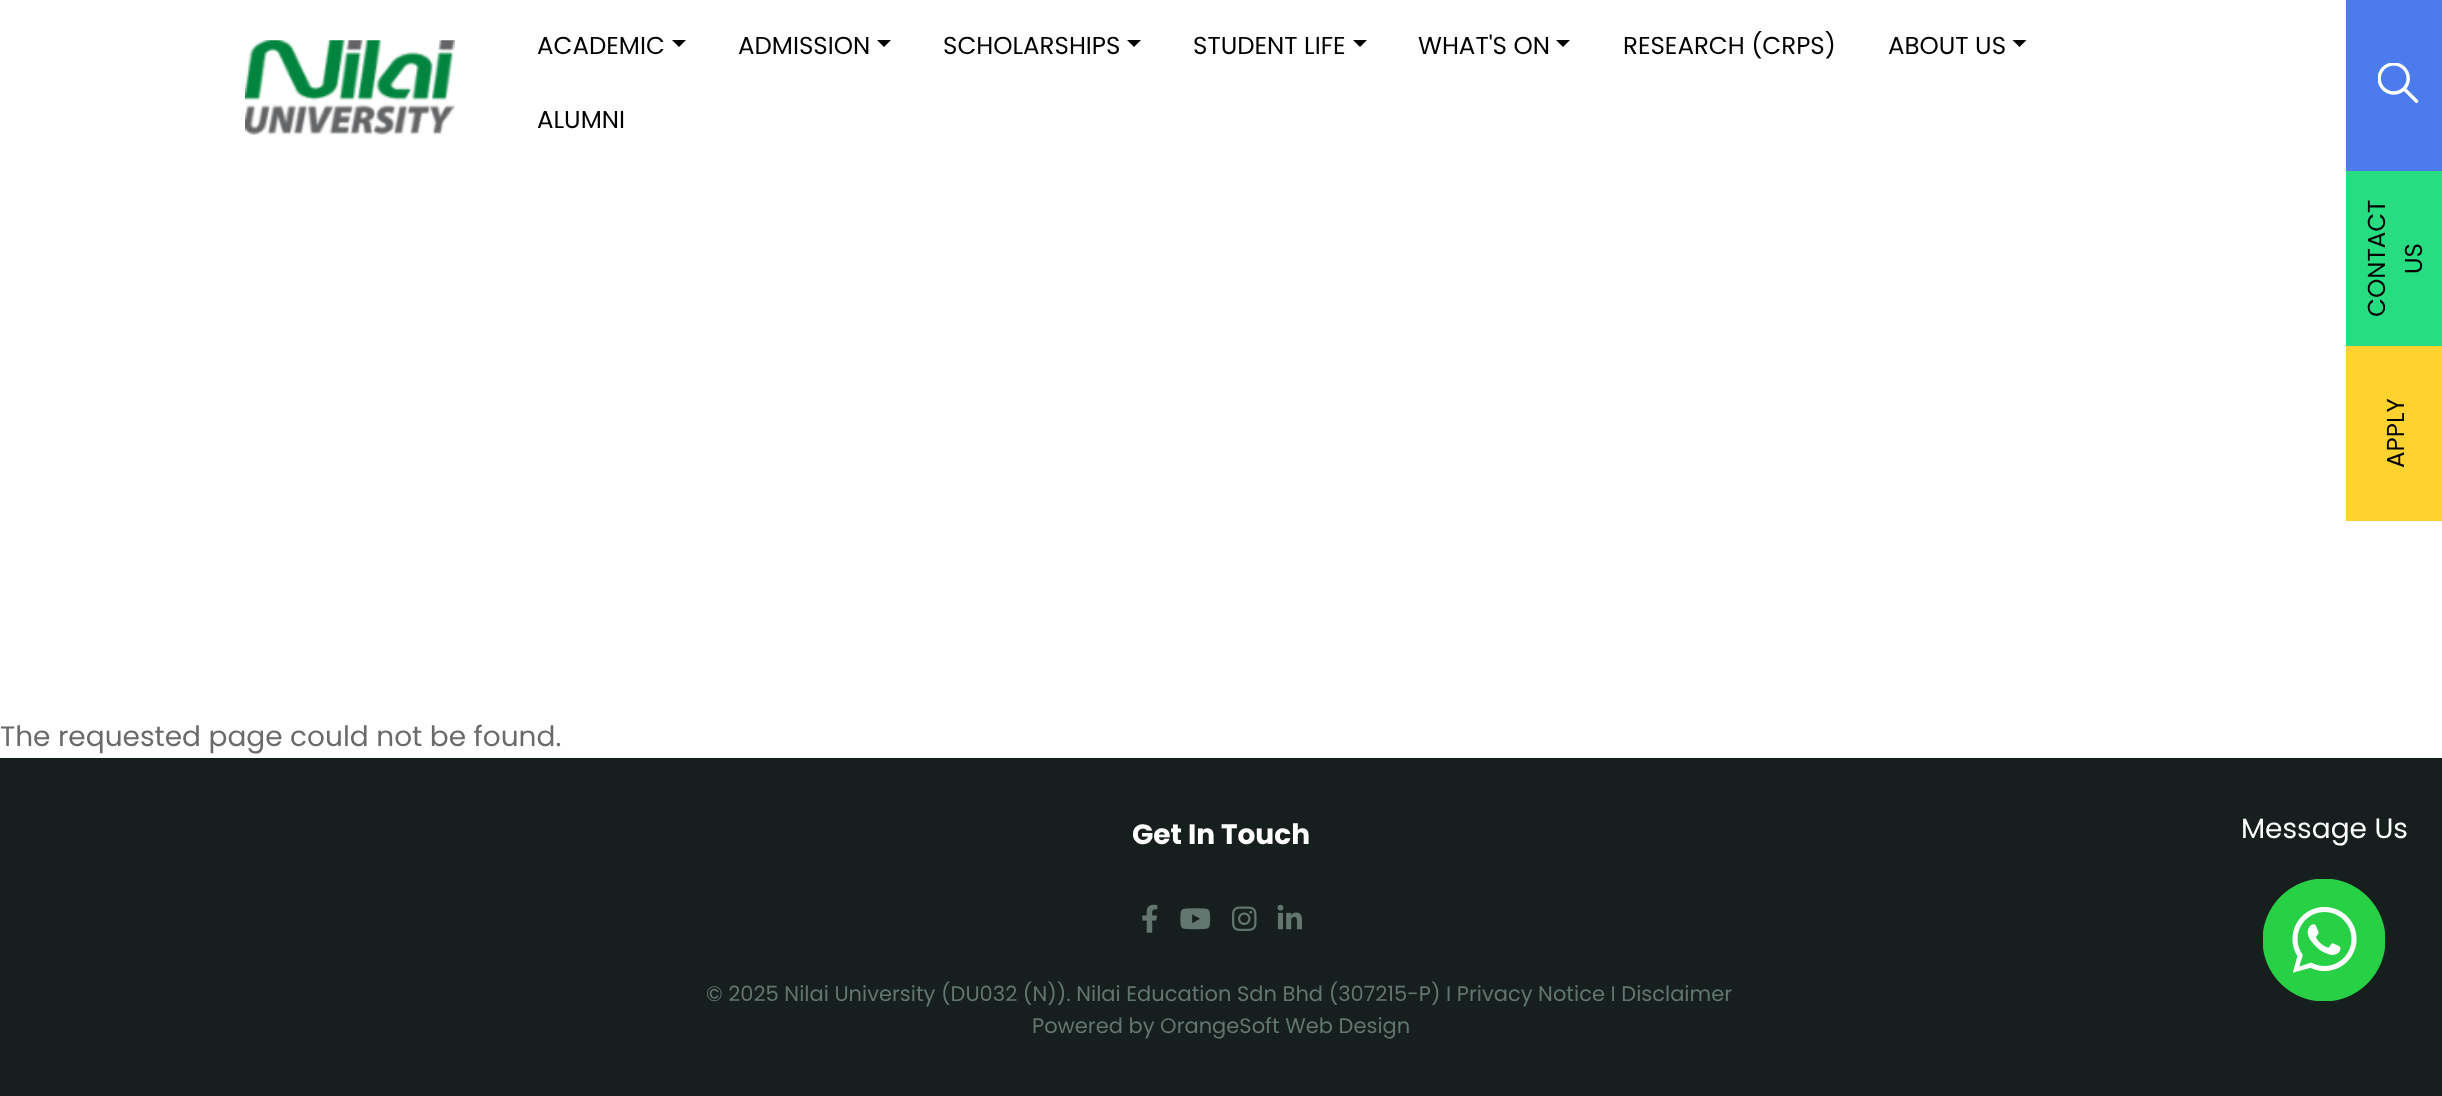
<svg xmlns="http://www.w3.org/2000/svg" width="2442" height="1096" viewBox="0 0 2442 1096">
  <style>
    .t1 { font: 24.5px Poppins; fill: #000; }
    .t2 { font: 28px Poppins; fill: #6a6a6a; }
    .t3 { font: bold 28px Poppins; fill: #fff; }
    .t4 { font: 21px Poppins; fill: #63756f; }
    .t5 { font: 28px Poppins; fill: #fff; }
  </style>
  <rect width="100%" height="100%" fill="#fff"/>
  <image x="245" y="40" width="210" height="95" href="images/1.png"/>
  <text x="537" y="54" class="t1">ACADEMIC</text>
  <path d="M672 40H686L679 47Z" fill="#000"/>
  <text x="738" y="54" class="t1">ADMISSION</text>
  <path d="M877 40H891L884 47Z" fill="#000"/>
  <text x="943" y="54" class="t1">SCHOLARSHIPS</text>
  <path d="M1127 40H1141L1134 47Z" fill="#000"/>
  <text x="1193" y="54" class="t1">STUDENT LIFE</text>
  <path d="M1353 40H1367L1360 47Z" fill="#000"/>
  <text x="1418" y="54" class="t1">WHAT'S ON</text>
  <path d="M1556 40H1570L1563 47Z" fill="#000"/>
  <text x="1623" y="54" class="t1">RESEARCH (CRPS)</text>
  <text x="1888" y="54" class="t1">ABOUT US</text>
  <path d="M2012.5 40H2026.5L2019.5 47Z" fill="#000"/>
  <text x="537" y="128" class="t1">ALUMNI</text>
  <rect x="2346" y="0" width="96" height="171" fill="#4b7bec"/>
  <image x="2378" y="63" width="41" height="40" href="images/2.png"/>
  <rect x="2346" y="171" width="96" height="175" fill="#26de81"/>
  <text x="2385" y="317" transform="rotate(-90 2385 317)" class="t1">CONTACT</text>
  <text x="2422" y="274" transform="rotate(-90 2422 274)" class="t1">US</text>
  <rect x="2346" y="346" width="96" height="175" fill="#fed330"/>
  <text x="2404" y="468" transform="rotate(-90 2404 468)" class="t1">APPLY</text>
  <text x="0" y="746" class="t2">The requested page could not be found.</text>
  <rect x="0" y="758" width="2442" height="338" fill="#161f1e"/>
  <text x="1132" y="844" class="t3">Get In Touch</text>
  <image x="1142" y="904" width="16" height="29" href="images/3.png"/>
  <image x="1180" y="908" width="31" height="22" href="images/4.png"/>
  <image x="1232" y="906" width="25" height="25" href="images/5.png"/>
  <image x="1277" y="904" width="25" height="26" href="images/6.png"/>
  <text x="706" y="1001" class="t4">© 2025 Nilai University (DU032 (N)). Nilai Education Sdn Bhd (307215-P) I Privacy Notice I Disclaimer</text>
  <text x="1032" y="1033" class="t4">Powered by OrangeSoft Web Design</text>
  <text x="2241" y="838" class="t5">Message Us</text>
  <image x="2263" y="879" width="122" height="122" href="images/7.png"/>
</svg>
